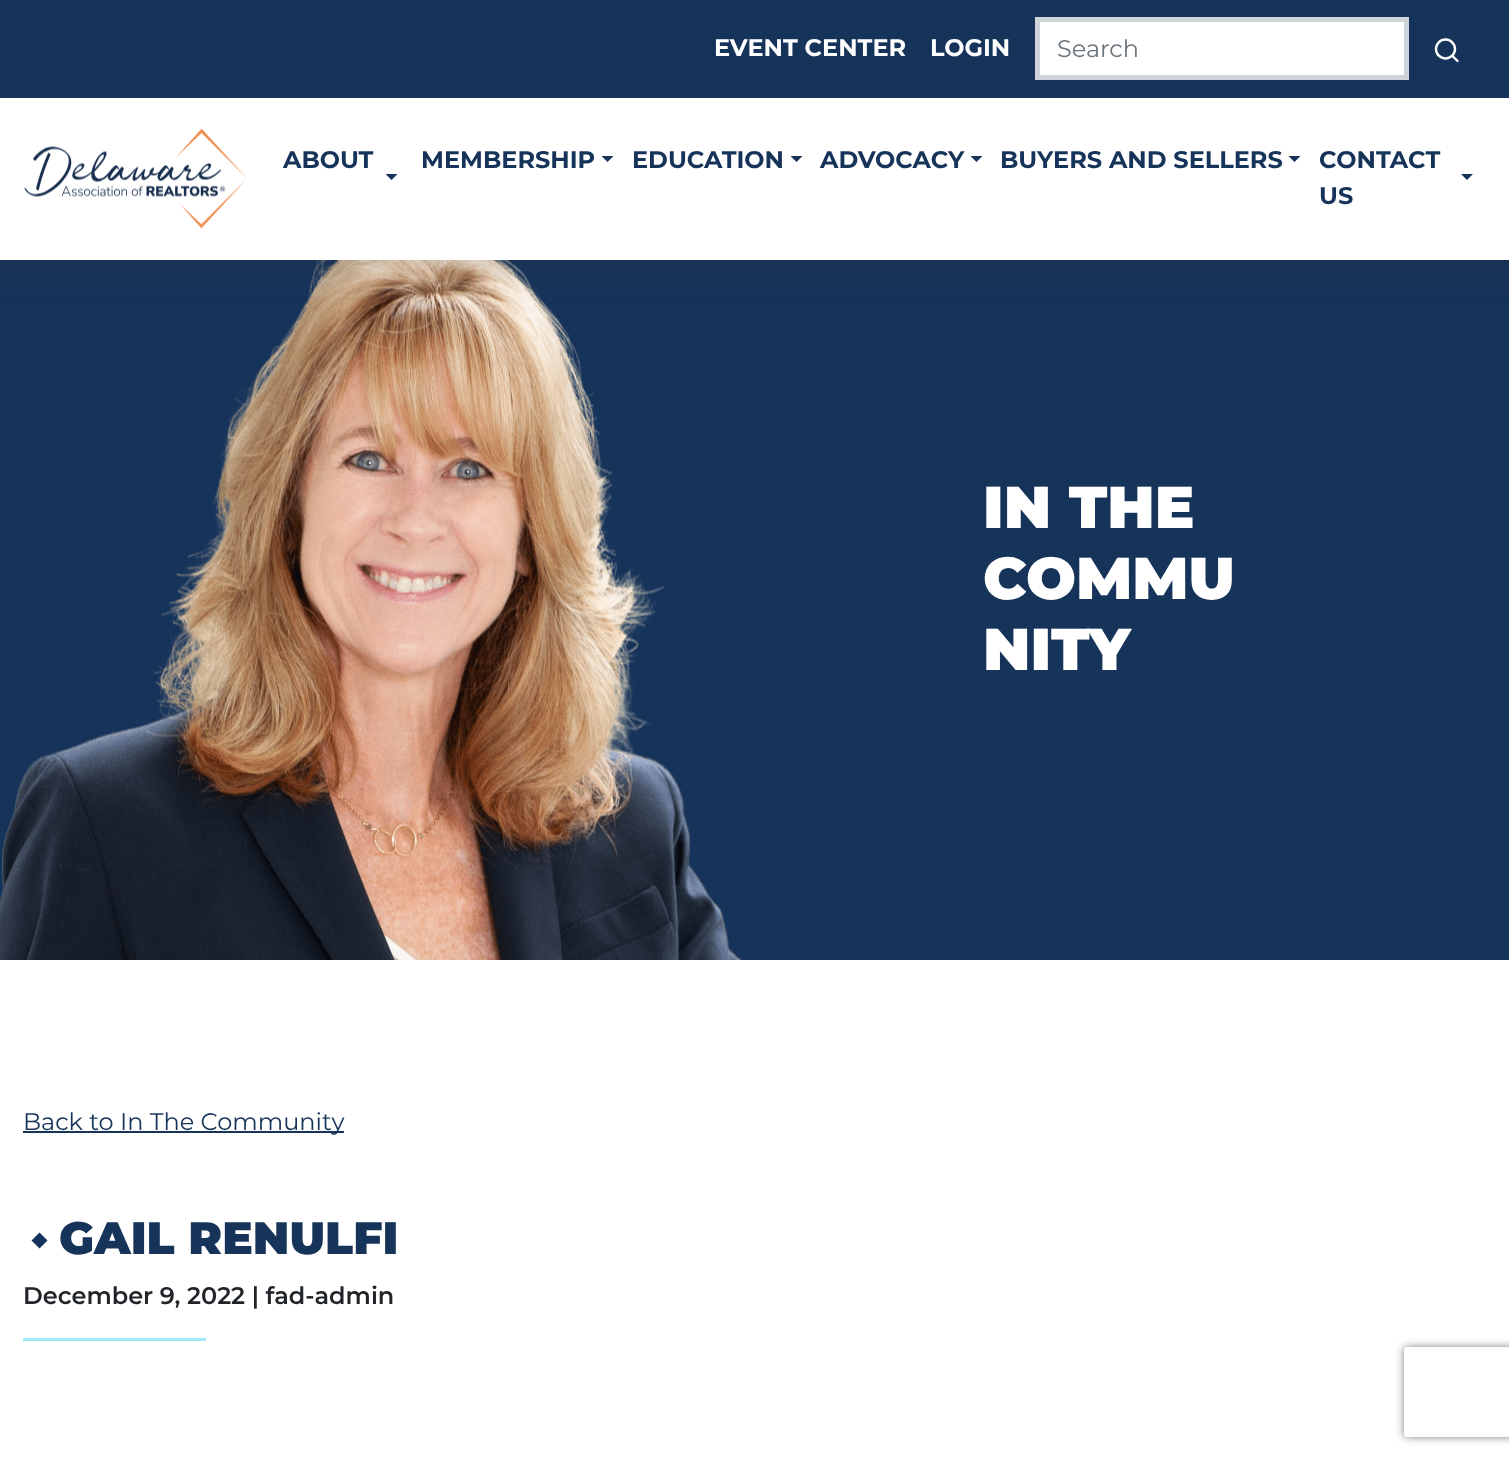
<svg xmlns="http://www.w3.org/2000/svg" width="1509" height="1457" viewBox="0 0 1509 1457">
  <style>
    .t1 { font: bold 24px Montserrat; fill: #fff; }
    .t2 { font: 24px Montserrat; fill: #6c757d; }
    .t3 { font: bold 24px Montserrat; fill: #16335a; }
    .t4 { font: 900 59px Montserrat; fill: #fff; }
    .t5 { font: 24px Montserrat; fill: #16335a; }
    .t6 { font: 900 45.5px Montserrat; fill: #16335a; }
    .t7 { font: 600 24px Montserrat; fill: #212529; }
  </style>
  <defs>
    <clipPath id="clip1"><path d="M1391 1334H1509V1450H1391ZM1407 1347H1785C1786.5 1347 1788 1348.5 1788 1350V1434C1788 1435.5 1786.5 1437 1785 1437H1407C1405.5 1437 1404 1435.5 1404 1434V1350C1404 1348.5 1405.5 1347 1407 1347Z" clip-rule="evenodd"/></clipPath>
  </defs>
  <rect width="100%" height="100%" fill="#fff"/>
  <rect x="0" y="260" width="1509" height="700" fill="#16335a"/>
  <image x="0" y="260" width="742" height="700" href="images/2.png"/>
  <rect x="-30" y="-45" width="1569" height="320" fill="#32373e26" filter="blur(15px)"/>
  <rect x="0" y="98" width="1509" height="162" fill="#fff"/>
  <rect x="0" y="0" width="1509" height="98" fill="#16335a"/>
  <text x="714" y="56" class="t1">EVENT CENTER</text>
  <text x="930" y="56" class="t1">LOGIN</text>
  <rect x="1037.5" y="19.5" width="369" height="58" fill="#fff" stroke="#ced4da" stroke-width="5"/>
  <text x="1057" y="57" class="t2">Search</text>
  <circle cx="1445.5" cy="49" r="9.5" fill="none" stroke="#fff" stroke-width="2.4"/>
  <path d="M1457.5 61L1452.5 56" fill="none" stroke="#fff" stroke-width="2.4" stroke-linecap="round" stroke-linejoin="round"/>
  <image x="24" y="128" width="223" height="101" href="images/1.png"/>
  <text x="283" y="168" class="t3">ABOUT</text>
  <path d="M385.5 174H397.5L391.5 180Z" fill="#16335a"/>
  <text x="421" y="168" class="t3">MEMBERSHIP</text>
  <path d="M601.5 156H613.5L607.5 162Z" fill="#16335a"/>
  <text x="632" y="168" class="t3">EDUCATION</text>
  <path d="M790.5 156H802.5L796.5 162Z" fill="#16335a"/>
  <text x="820" y="168" class="t3">ADVOCACY</text>
  <path d="M970.5 156H982.5L976.5 162Z" fill="#16335a"/>
  <text x="1000" y="168" class="t3">BUYERS AND SELLERS</text>
  <path d="M1288.5 156H1300.5L1294.5 162Z" fill="#16335a"/>
  <text x="1319" y="168" class="t3">CONTACT</text>
  <text x="1319" y="204" class="t3">US</text>
  <path d="M1461 174H1473L1467 180Z" fill="#16335a"/>
  <text x="983" y="528" class="t4">IN THE</text>
  <text x="983" y="599" class="t4">COMMU</text>
  <text x="983" y="670" class="t4">NITY</text>
  <rect x="23" y="1131" width="321" height="2" fill="#16335a"/>
  <text x="23" y="1130" class="t5">Back to In The Community</text>
  <path d="M39.5 1232.5L47.5 1240.5L39.5 1248.5L31.5 1240.5Z" fill="#16335a"/>
  <text x="59" y="1254" class="t6">GAIL RENULFI</text>
  <text x="23" y="1304" class="t7">December 9, 2022 | fad-admin</text>
  <rect x="23" y="1338" width="183" height="3" fill="#a2e9fb"/>
  <g clip-path="url(#clip1)">
    <rect x="1404" y="1347" width="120" height="90" rx="3" fill="#808080" filter="blur(4px)"/>
  </g>
</svg>
